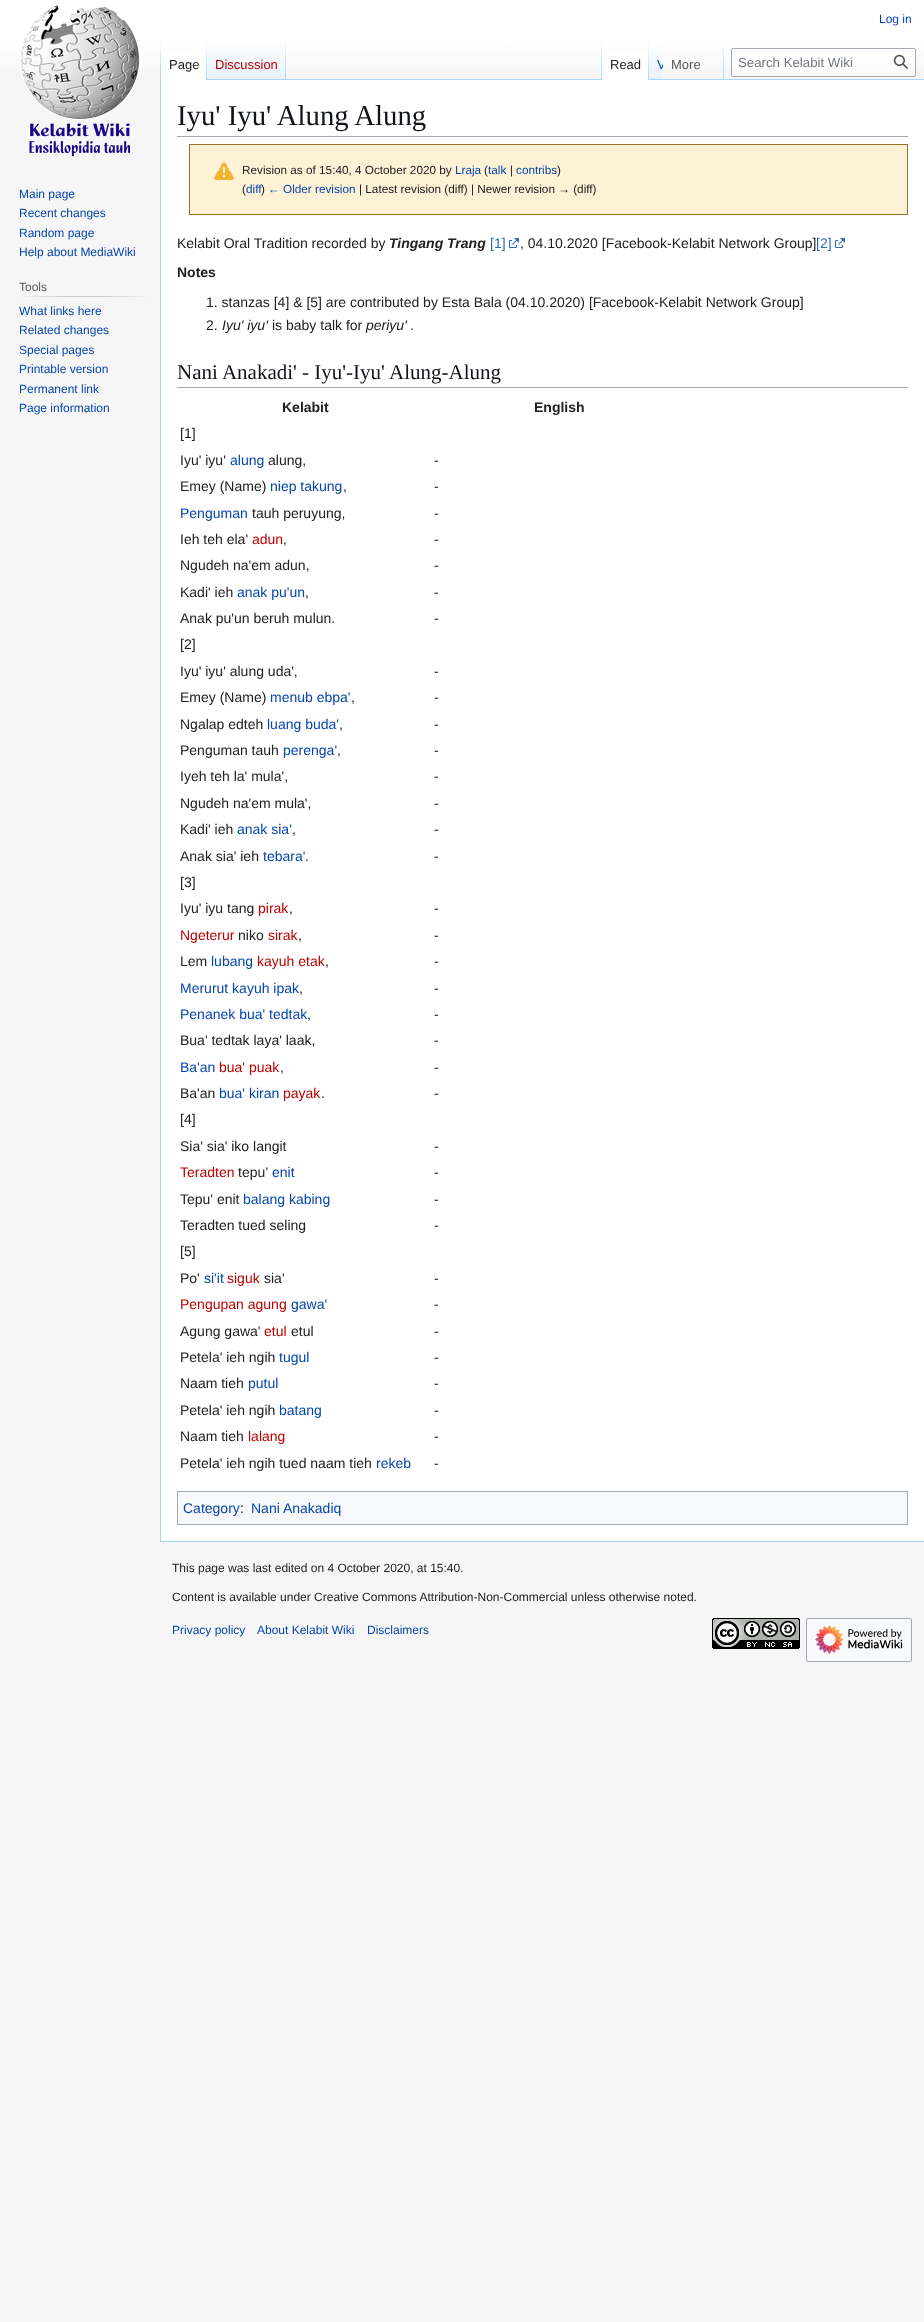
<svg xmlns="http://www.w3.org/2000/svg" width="924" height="2322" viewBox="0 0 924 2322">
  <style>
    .t1 { font: 12px Liberation Sans; fill: #0645ad; }
    .t2 { font: 13px Liberation Sans; fill: #202122; }
    .t3 { font: 13px Liberation Sans; fill: #ba0000; }
    .t4 { font: 13px Liberation Sans; fill: #0645ad; }
    .t5 { font: 13px Liberation Sans; fill: #54595d; }
    .t6 { font: 13.25px Liberation Sans; fill: #72777d; }
    .t7 { font: 12px Liberation Sans; fill: #54595d; }
    .t8 { font: 28.75px Liberation Serif; fill: #101418; }
    .t9 { font: 11.75px Liberation Sans; fill: #202122; }
    .t10 { font: 11.75px Liberation Sans; fill: #0645ad; }
    .t11 { font: 14px Liberation Sans; fill: #202122; }
    .t12 { font: italic bold 14px Liberation Sans; fill: #202122; }
    .t13 { font: 14px Liberation Sans; fill: #36b; }
    .t14 { font: bold 14px Liberation Sans; fill: #202122; }
    .t15 { font: italic 14px Liberation Sans; fill: #202122; }
    .t16 { font: 21px Liberation Serif; fill: #101418; }
    .t17 { font: 14px Liberation Sans; fill: #0645ad; }
    .t18 { font: 14px Liberation Sans; fill: #ba0000; }
    .t19 { font: 12px Liberation Sans; fill: #202122; }
  </style>
  <defs>
    <linearGradient id="g1" gradientUnits="userSpaceOnUse" x1="462" y1="0" x2="462" y2="80"><stop offset="0.5" stop-color="#fff"/><stop offset="1" stop-color="#f6f6f6"/></linearGradient>
    <linearGradient id="g2" gradientUnits="userSpaceOnUse" x1="161" y1="40" x2="161" y2="80"><stop offset="0" stop-color="#a7d7f9" stop-opacity="0"/><stop offset="1" stop-color="#a7d7f9"/></linearGradient>
    <linearGradient id="g3" gradientUnits="userSpaceOnUse" x1="207" y1="40" x2="207" y2="80"><stop offset="0" stop-color="#fff"/><stop offset="1" stop-color="#a7d7f9"/></linearGradient>
    <linearGradient id="g4" gradientUnits="userSpaceOnUse" x1="247" y1="80" x2="247" y2="40"><stop offset="0" stop-color="#77c1f6"/><stop offset="0.03" stop-color="#e8f2f8"/><stop offset="1" stop-color="#fff"/></linearGradient>
    <linearGradient id="g5" gradientUnits="userSpaceOnUse" x1="286" y1="40" x2="286" y2="80"><stop offset="0" stop-color="#a7d7f9" stop-opacity="0"/><stop offset="1" stop-color="#a7d7f9"/></linearGradient>
    <linearGradient id="g6" gradientUnits="userSpaceOnUse" x1="602" y1="40" x2="602" y2="80"><stop offset="0" stop-color="#a7d7f9" stop-opacity="0"/><stop offset="1" stop-color="#a7d7f9"/></linearGradient>
    <linearGradient id="g7" gradientUnits="userSpaceOnUse" x1="649" y1="40" x2="649" y2="80"><stop offset="0" stop-color="#fff"/><stop offset="1" stop-color="#a7d7f9"/></linearGradient>
    <linearGradient id="g8" gradientUnits="userSpaceOnUse" x1="656" y1="80" x2="656" y2="40"><stop offset="0" stop-color="#77c1f6"/><stop offset="0.03" stop-color="#e8f2f8"/><stop offset="1" stop-color="#fff"/></linearGradient>
    <clipPath id="clip1"><rect x="649" y="40" width="14" height="40"/></clipPath>
    <linearGradient id="g9" gradientUnits="userSpaceOnUse" x1="724" y1="40" x2="724" y2="80"><stop offset="0" stop-color="#a7d7f9" stop-opacity="0"/><stop offset="1" stop-color="#a7d7f9"/></linearGradient>
    <linearGradient id="g10" gradientUnits="userSpaceOnUse" x1="19" y1="297" x2="150" y2="297"><stop offset="0" stop-color="#f6f6f6"/><stop offset="0.33" stop-color="#c8ccd1"/><stop offset="0.66" stop-color="#c8ccd1"/><stop offset="1" stop-color="#f6f6f6"/></linearGradient>
  </defs>
  <rect width="100%" height="100%" fill="#f6f6f6"/>
  <rect x="0" y="0" width="924" height="69" fill="url(#g1)"/>
  <text x="879" y="23" class="t1">Log in</text>
  <rect x="160" y="1541" width="764" height="1" fill="#a7d7f9"/>
  <rect x="160" y="79" width="1" height="1463" fill="#a7d7f9"/>
  <rect x="160" y="40" width="1" height="40" fill="url(#g2)"/>
  <rect x="161" y="51" width="45" height="29" fill="#fff"/>
  <rect x="206" y="40" width="1" height="40" fill="url(#g3)"/>
  <text x="169" y="69" class="t2">Page</text>
  <rect x="207" y="46" width="79" height="34" fill="url(#g4)"/>
  <rect x="285" y="40" width="1" height="40" fill="url(#g5)"/>
  <text x="215" y="69" class="t3">Discussion</text>
  <rect x="286" y="79" width="638" height="1" fill="#a7d7f9"/>
  <rect x="601" y="40" width="1" height="40" fill="url(#g6)"/>
  <rect x="602" y="51" width="46" height="29" fill="#fff"/>
  <rect x="648" y="40" width="1" height="40" fill="url(#g7)"/>
  <text x="610" y="69" class="t2">Read</text>
  <rect x="649" y="46" width="14" height="33" fill="url(#g8)"/>
  <g clip-path="url(#clip1)">
    <text x="657" y="69" class="t4">V</text>
  </g>
  <rect x="723" y="40" width="1" height="40" fill="url(#g9)"/>
  <text x="671" y="69" class="t5">More</text>
  <rect x="731.5" y="48.5" width="184" height="28" rx="1.5" fill="#ffffff80" stroke="#a2a9b1"/>
  <text x="738" y="67" class="t6">Search Kelabit Wiki</text>
  <image x="893" y="54" width="15" height="15" href="images/1.png"/>
  <image x="20" y="5" width="120" height="152" href="images/2.png"/>
  <text x="19" y="198" class="t1">Main page</text>
  <text x="19" y="217" class="t1">Recent changes</text>
  <text x="19" y="237" class="t1">Random page</text>
  <text x="19" y="256" class="t1">Help about MediaWiki</text>
  <rect x="19" y="296" width="131" height="1" fill="url(#g10)"/>
  <text x="19" y="291" class="t7">Tools</text>
  <text x="19" y="315" class="t1">What links here</text>
  <text x="19" y="334" class="t1">Related changes</text>
  <text x="19" y="354" class="t1">Special pages</text>
  <text x="19" y="373" class="t1">Printable version</text>
  <text x="19" y="393" class="t1">Permanent link</text>
  <text x="19" y="412" class="t1">Page information</text>
  <rect x="161" y="80" width="763" height="1461" fill="#fff"/>
  <rect x="177" y="136" width="731" height="1" fill="#a2a9b1"/>
  <text x="177" y="125" class="t8">Iyu' Iyu' Alung Alung</text>
  <rect x="189.5" y="144.5" width="718" height="70" fill="#fdf2d5" stroke="#987027"/>
  <image x="214" y="162" width="20" height="18" href="images/3.png"/>
  <text x="242" y="174" class="t9">Revision as of 15:40, 4 October 2020 by</text>
  <text x="455" y="174" class="t10">Lraja</text>
  <text x="484" y="174" class="t9">(</text>
  <text x="488" y="174" class="t10">talk</text>
  <text x="510" y="174" class="t9">|</text>
  <text x="516" y="174" class="t10">contribs</text>
  <text x="557" y="174" class="t9">)</text>
  <text x="242" y="193" class="t9">(</text>
  <text x="246" y="193" class="t10">diff</text>
  <text x="261" y="193" class="t9">)</text>
  <text x="268" y="193" class="t10">← Older revision</text>
  <text x="359" y="193" class="t9">| Latest revision (diff) | Newer revision → (diff)</text>
  <text x="177" y="248" class="t11">Kelabit Oral Tradition recorded by</text>
  <text x="389" y="248" class="t12">Tingang Trang</text>
  <text x="490" y="248" class="t13">[1]</text>
  <image x="509" y="238" width="10" height="10" href="images/4.png"/>
  <text x="520" y="248" class="t11">, 04.10.2020 [Facebook-Kelabit Network Group]</text>
  <text x="816" y="248" class="t13">[2]</text>
  <image x="835" y="238" width="10" height="10" href="images/4.png"/>
  <text x="177" y="277" class="t14">Notes</text>
  <text x="206" y="307" class="t11">1. stanzas [4] &amp; [5] are contributed by Esta Bala (04.10.2020) [Facebook-Kelabit Network Group]</text>
  <text x="206" y="330" class="t11">2.</text>
  <text x="222" y="330" class="t15">Iyu' iyu'</text>
  <text x="272" y="330" class="t11">is baby talk for</text>
  <text x="366" y="330" class="t15">periyu'</text>
  <text x="410" y="330" class="t11">.</text>
  <rect x="177" y="387" width="731" height="1" fill="#a2a9b1"/>
  <text x="177" y="379" class="t16">Nani Anakadi' - Iyu'-Iyu' Alung-Alung</text>
  <text x="282" y="412" class="t14">Kelabit</text>
  <text x="534" y="412" class="t14">English</text>
  <text x="180" y="438" class="t11">[1]</text>
  <text x="180" y="465" class="t11">Iyu' iyu'</text>
  <text x="230" y="465" class="t17">alung</text>
  <text x="268" y="465" class="t11">alung,</text>
  <text x="434" y="465" class="t11">-</text>
  <text x="180" y="491" class="t11">Emey (Name)</text>
  <text x="270" y="491" class="t17">niep takung</text>
  <text x="343" y="491" class="t11">,</text>
  <text x="434" y="491" class="t11">-</text>
  <text x="180" y="518" class="t17">Penguman</text>
  <text x="252" y="518" class="t11">tauh peruyung,</text>
  <text x="434" y="518" class="t11">-</text>
  <text x="180" y="544" class="t11">Ieh teh ela'</text>
  <text x="252" y="544" class="t18">adun</text>
  <text x="283" y="544" class="t11">,</text>
  <text x="434" y="544" class="t11">-</text>
  <text x="180" y="570" class="t11">Ngudeh na'em adun,</text>
  <text x="434" y="570" class="t11">-</text>
  <text x="180" y="597" class="t11">Kadi' ieh</text>
  <text x="237" y="597" class="t17">anak pu'un</text>
  <text x="305" y="597" class="t11">,</text>
  <text x="434" y="597" class="t11">-</text>
  <text x="180" y="623" class="t11">Anak pu'un beruh mulun.</text>
  <text x="434" y="623" class="t11">-</text>
  <text x="180" y="649" class="t11">[2]</text>
  <text x="180" y="676" class="t11">Iyu' iyu' alung uda',</text>
  <text x="434" y="676" class="t11">-</text>
  <text x="180" y="702" class="t11">Emey (Name)</text>
  <text x="270" y="702" class="t17">menub ebpa'</text>
  <text x="351" y="702" class="t11">,</text>
  <text x="434" y="702" class="t11">-</text>
  <text x="180" y="729" class="t11">Ngalap edteh</text>
  <text x="267" y="729" class="t17">luang buda'</text>
  <text x="339" y="729" class="t11">,</text>
  <text x="434" y="729" class="t11">-</text>
  <text x="180" y="755" class="t11">Penguman tauh</text>
  <text x="283" y="755" class="t17">perenga'</text>
  <text x="337" y="755" class="t11">,</text>
  <text x="434" y="755" class="t11">-</text>
  <text x="180" y="781" class="t11">Iyeh teh la' mula',</text>
  <text x="434" y="781" class="t11">-</text>
  <text x="180" y="808" class="t11">Ngudeh na'em mula',</text>
  <text x="434" y="808" class="t11">-</text>
  <text x="180" y="834" class="t11">Kadi' ieh</text>
  <text x="237" y="834" class="t17">anak sia'</text>
  <text x="292" y="834" class="t11">,</text>
  <text x="434" y="834" class="t11">-</text>
  <text x="180" y="861" class="t11">Anak sia' ieh</text>
  <text x="263" y="861" class="t17">tebara'</text>
  <text x="305" y="861" class="t11">.</text>
  <text x="434" y="861" class="t11">-</text>
  <text x="180" y="887" class="t11">[3]</text>
  <text x="180" y="913" class="t11">Iyu' iyu tang</text>
  <text x="258" y="913" class="t18">pirak</text>
  <text x="289" y="913" class="t11">,</text>
  <text x="434" y="913" class="t11">-</text>
  <text x="180" y="940" class="t18">Ngeterur</text>
  <text x="238" y="940" class="t11">niko</text>
  <text x="268" y="940" class="t18">sirak</text>
  <text x="298" y="940" class="t11">,</text>
  <text x="434" y="940" class="t11">-</text>
  <text x="180" y="966" class="t11">Lem</text>
  <text x="211" y="966" class="t17">lubang</text>
  <text x="257" y="966" class="t18">kayuh etak</text>
  <text x="325" y="966" class="t11">,</text>
  <text x="434" y="966" class="t11">-</text>
  <text x="180" y="993" class="t17">Merurut kayuh ipak</text>
  <text x="299" y="993" class="t11">,</text>
  <text x="434" y="993" class="t11">-</text>
  <text x="180" y="1019" class="t17">Penanek bua' tedtak</text>
  <text x="307" y="1019" class="t11">,</text>
  <text x="434" y="1019" class="t11">-</text>
  <text x="180" y="1045" class="t11">Bua' tedtak laya' laak,</text>
  <text x="434" y="1045" class="t11">-</text>
  <text x="180" y="1072" class="t17">Ba'an</text>
  <text x="219" y="1072" class="t18">bua' puak</text>
  <text x="280" y="1072" class="t11">,</text>
  <text x="434" y="1072" class="t11">-</text>
  <text x="180" y="1098" class="t11">Ba'an</text>
  <text x="219" y="1098" class="t17">bua' kiran</text>
  <text x="283" y="1098" class="t18">payak</text>
  <text x="321" y="1098" class="t11">.</text>
  <text x="434" y="1098" class="t11">-</text>
  <text x="180" y="1124" class="t11">[4]</text>
  <text x="180" y="1151" class="t11">Sia' sia' iko langit</text>
  <text x="434" y="1151" class="t11">-</text>
  <text x="180" y="1177" class="t18">Teradten</text>
  <text x="238" y="1177" class="t11">tepu’</text>
  <text x="272" y="1177" class="t17">enit</text>
  <text x="434" y="1177" class="t11">-</text>
  <text x="180" y="1204" class="t11">Tepu' enit</text>
  <text x="243" y="1204" class="t17">balang kabing</text>
  <text x="434" y="1204" class="t11">-</text>
  <text x="180" y="1230" class="t11">Teradten tued seling</text>
  <text x="434" y="1230" class="t11">-</text>
  <text x="180" y="1256" class="t11">[5]</text>
  <text x="180" y="1283" class="t11">Po'</text>
  <text x="204" y="1283" class="t17">si'it</text>
  <text x="227" y="1283" class="t18">siguk</text>
  <text x="264" y="1283" class="t11">sia'</text>
  <text x="434" y="1283" class="t11">-</text>
  <text x="180" y="1309" class="t18">Pengupan agung</text>
  <text x="291" y="1309" class="t17">gawa'</text>
  <text x="434" y="1309" class="t11">-</text>
  <text x="180" y="1336" class="t11">Agung gawa'</text>
  <text x="264" y="1336" class="t18">etul</text>
  <text x="291" y="1336" class="t11">etul</text>
  <text x="434" y="1336" class="t11">-</text>
  <text x="180" y="1362" class="t11">Petela' ieh ngih</text>
  <text x="279" y="1362" class="t17">tugul</text>
  <text x="434" y="1362" class="t11">-</text>
  <text x="180" y="1388" class="t11">Naam tieh</text>
  <text x="248" y="1388" class="t17">putul</text>
  <text x="434" y="1388" class="t11">-</text>
  <text x="180" y="1415" class="t11">Petela' ieh ngih</text>
  <text x="279" y="1415" class="t17">batang</text>
  <text x="434" y="1415" class="t11">-</text>
  <text x="180" y="1441" class="t11">Naam tieh</text>
  <text x="248" y="1441" class="t18">lalang</text>
  <text x="434" y="1441" class="t11">-</text>
  <text x="180" y="1468" class="t11">Petela' ieh ngih tued naam tieh</text>
  <text x="376" y="1468" class="t17">rekeb</text>
  <text x="434" y="1468" class="t11">-</text>
  <rect x="177.5" y="1491.5" width="730" height="33" fill="#f8f9fa" stroke="#a2a9b1"/>
  <text x="183" y="1513" class="t17">Category</text>
  <text x="240" y="1513" class="t11">:</text>
  <text x="251" y="1513" class="t17">Nani Anakadiq</text>
  <text x="172" y="1572" class="t19">This page was last edited on 4 October 2020, at 15:40.</text>
  <text x="172" y="1601" class="t19">Content is available under Creative Commons Attribution-Non-Commercial unless otherwise noted.</text>
  <text x="172" y="1634" class="t1">Privacy policy</text>
  <text x="257" y="1634" class="t1">About Kelabit Wiki</text>
  <text x="367" y="1634" class="t1">Disclaimers</text>
  <image x="712" y="1618" width="88" height="31" href="images/5.png"/>
  <rect x="806.5" y="1618.5" width="105" height="43" rx="1.5" fill="#f8f9fa" stroke="#a2a9b1"/>
  <image x="815" y="1625" width="88" height="29" href="images/6.png"/>
</svg>
